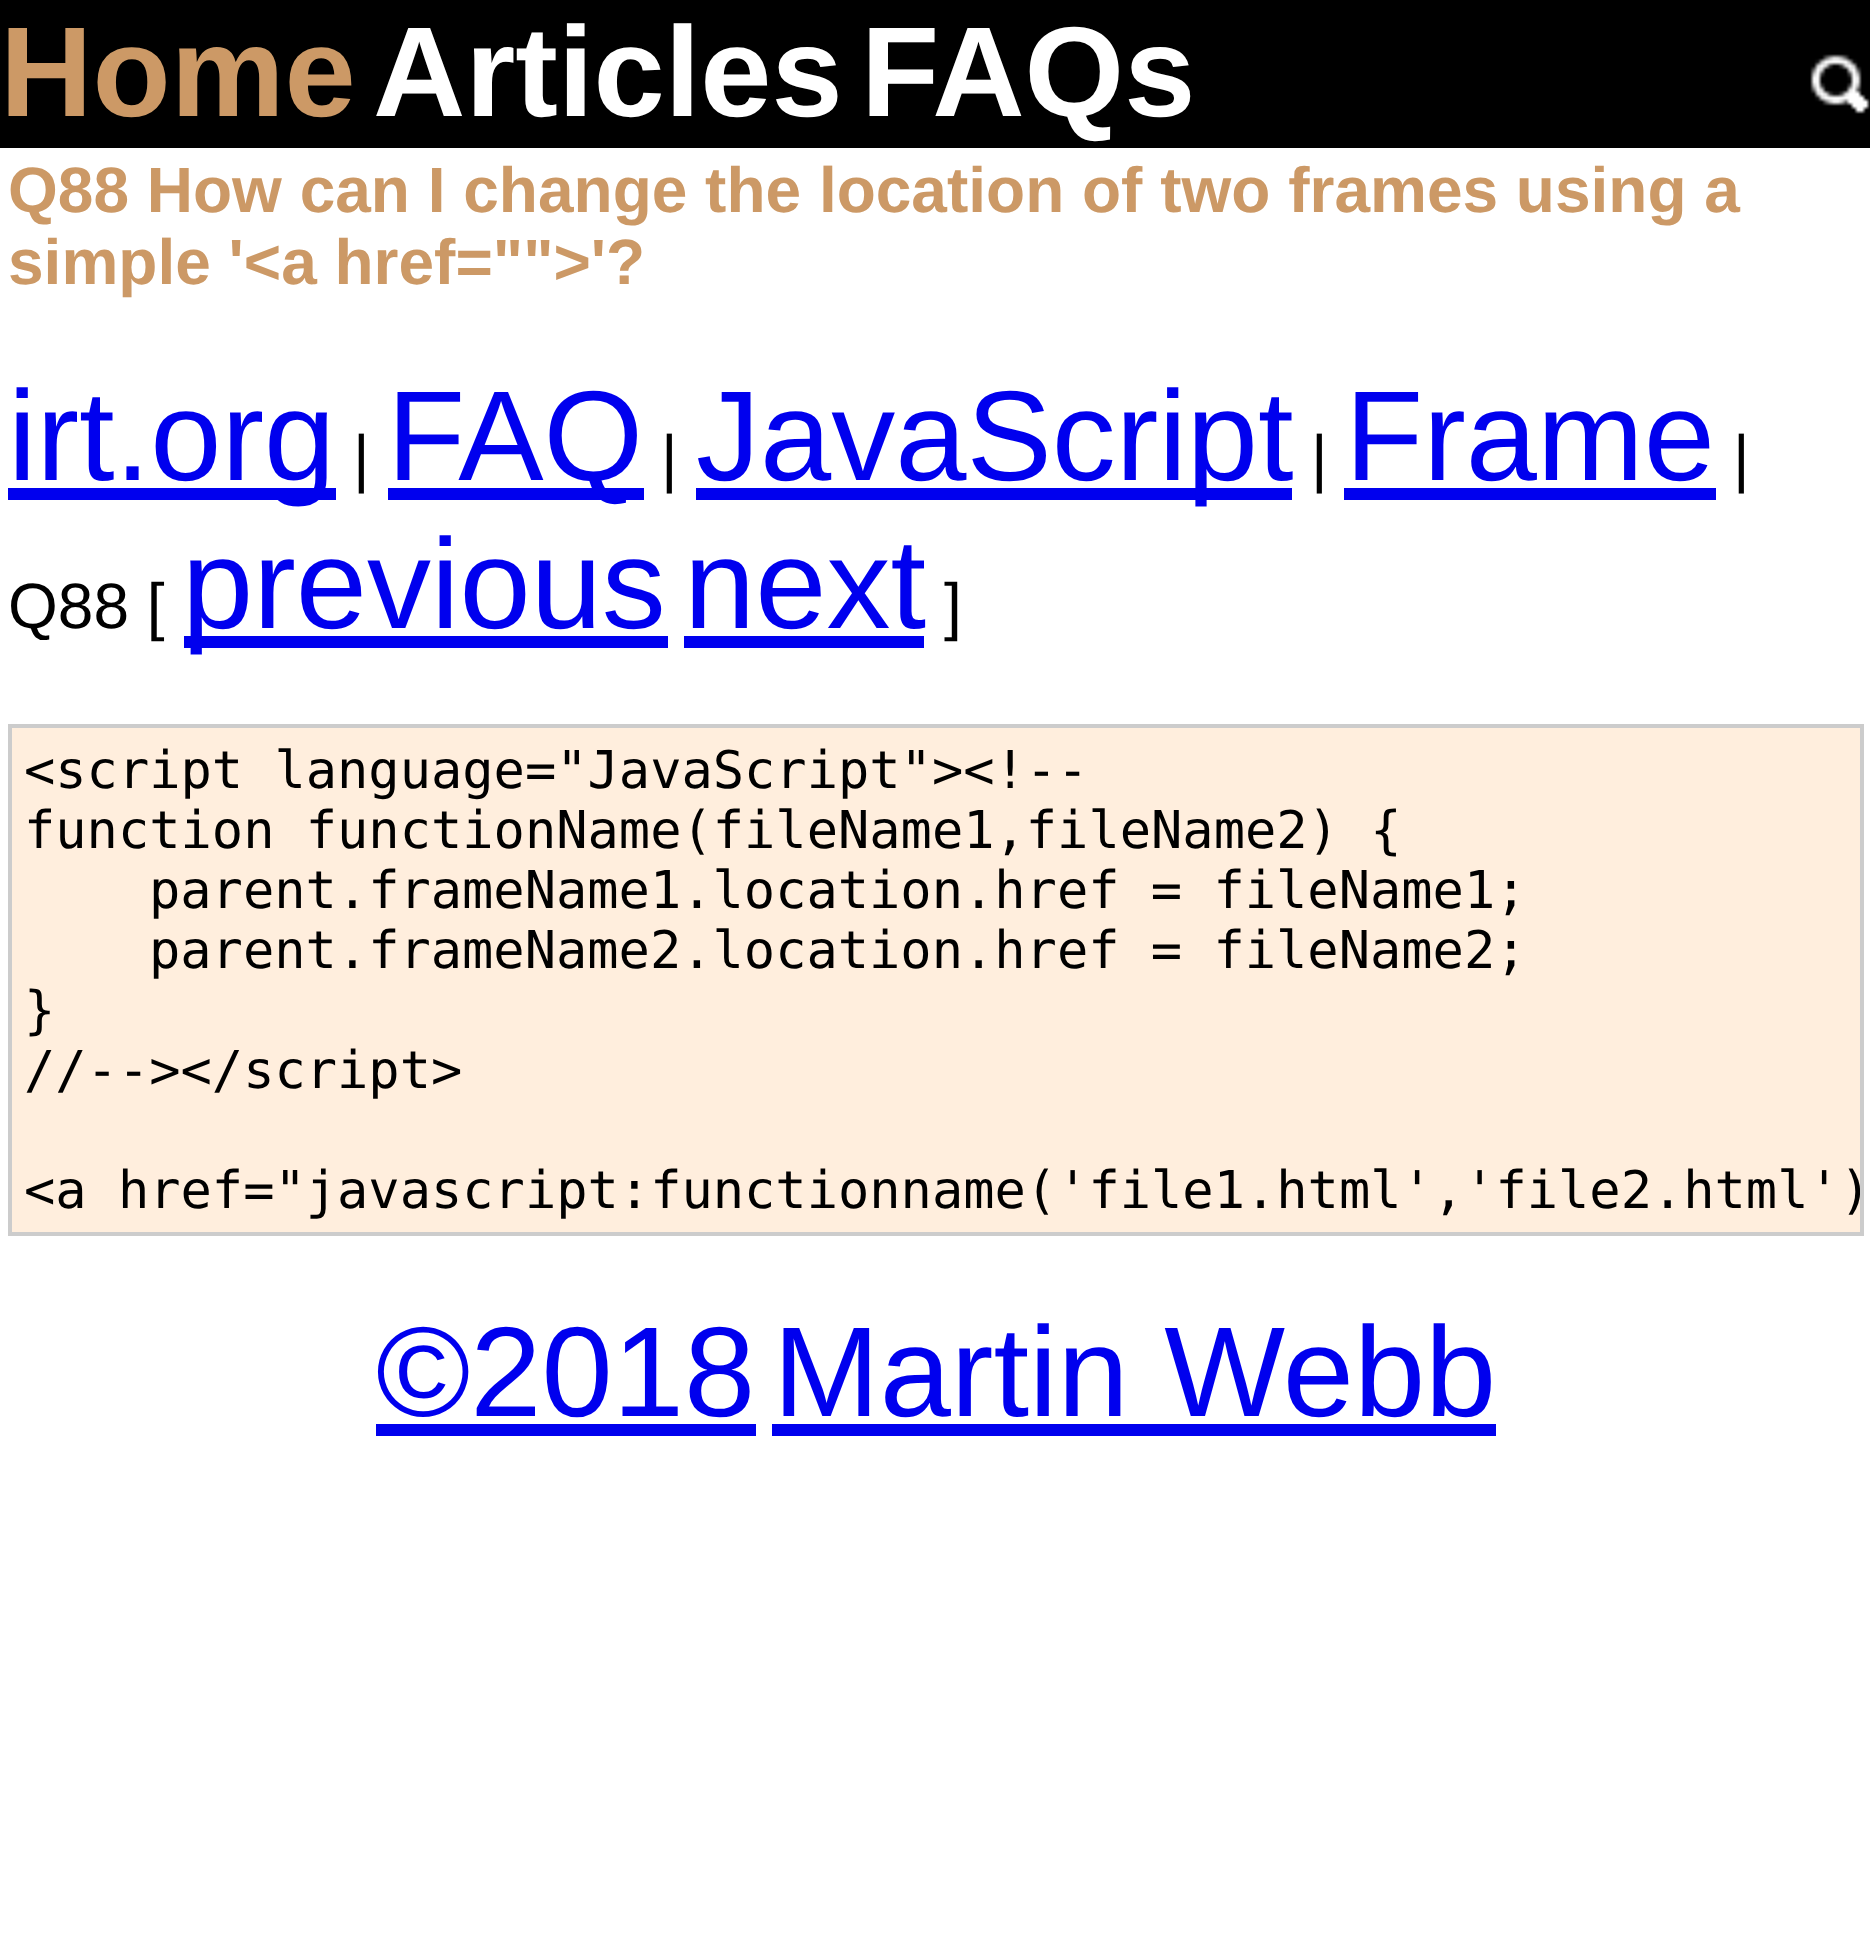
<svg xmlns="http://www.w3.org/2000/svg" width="1870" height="1942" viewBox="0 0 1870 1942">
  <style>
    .t1 { font: bold 128px Liberation Sans; fill: #c96; }
    .t2 { font: bold 128px Liberation Sans; fill: #fff; }
    .t3 { font: bold 64px Liberation Sans; fill: #c96; }
    .t4 { font: 128px Liberation Sans; fill: #00e; }
    .t5 { font: 64px Liberation Sans; fill: #000; }
    .t6 { font: 52px DejaVu Sans Mono; fill: #000; }
  </style>
  <defs>
    <clipPath id="clip1"><rect x="12" y="728" width="1848" height="504"/></clipPath>
  </defs>
  <rect width="100%" height="100%" fill="#fff"/>
  <rect x="0" y="0" width="1870" height="148" fill="#000"/>
  <text x="0" y="116" class="t1">Home</text>
  <text x="373" y="116" class="t2">Articles</text>
  <text x="861" y="116" class="t2">FAQs</text>
  <image x="1810" y="54" width="60" height="60" href="images/1.png"/>
  <text x="8" y="212" class="t3">Q88 How can I change the location of two frames using a</text>
  <text x="8" y="284" class="t3">simple '&lt;a href=""&gt;'?</text>
  <rect x="8" y="488" width="328" height="12" fill="#00e"/>
  <text x="8" y="480" class="t4">irt.org</text>
  <text x="353" y="480" class="t5">|</text>
  <rect x="388" y="488" width="256" height="12" fill="#00e"/>
  <text x="387" y="480" class="t4">FAQ</text>
  <text x="661" y="480" class="t5">|</text>
  <rect x="696" y="488" width="596" height="12" fill="#00e"/>
  <text x="696" y="480" class="t4">JavaScript</text>
  <text x="1311" y="480" class="t5">|</text>
  <text x="1345" y="480" class="t4">Frame</text>
  <rect x="1344" y="488" width="372" height="12" fill="#00e"/>
  <text x="1733" y="480" class="t5">|</text>
  <text x="8" y="628" class="t5">Q88 [</text>
  <rect x="184" y="636" width="484" height="12" fill="#00e"/>
  <text x="182" y="628" class="t4">previous</text>
  <text x="684" y="628" class="t4">next</text>
  <rect x="684" y="636" width="240" height="12" fill="#00e"/>
  <text x="944" y="628" class="t5">]</text>
  <rect x="10" y="726" width="1852" height="508" fill="#fed" stroke="#ccc" stroke-width="4"/>
  <text x="24" y="788" class="t6">&lt;script language="JavaScript"&gt;&lt;!--</text>
  <text x="24" y="848" class="t6">function functionName(fileName1,fileName2) {</text>
  <text x="149" y="908" class="t6">parent.frameName1.location.href = fileName1;</text>
  <text x="149" y="968" class="t6">parent.frameName2.location.href = fileName2;</text>
  <text x="24" y="1028" class="t6">}</text>
  <text x="24" y="1088" class="t6">//--&gt;&lt;/script&gt;</text>
  <g clip-path="url(#clip1)">
    <text x="24" y="1208" class="t6">&lt;a href="javascript:functionname('file1.html','file2.html')</text>
  </g>
  <text x="376" y="1416" class="t4">©2018</text>
  <rect x="376" y="1424" width="380" height="12" fill="#00e"/>
  <text x="773" y="1416" class="t4">Martin Webb</text>
  <rect x="772" y="1424" width="724" height="12" fill="#00e"/>
</svg>
